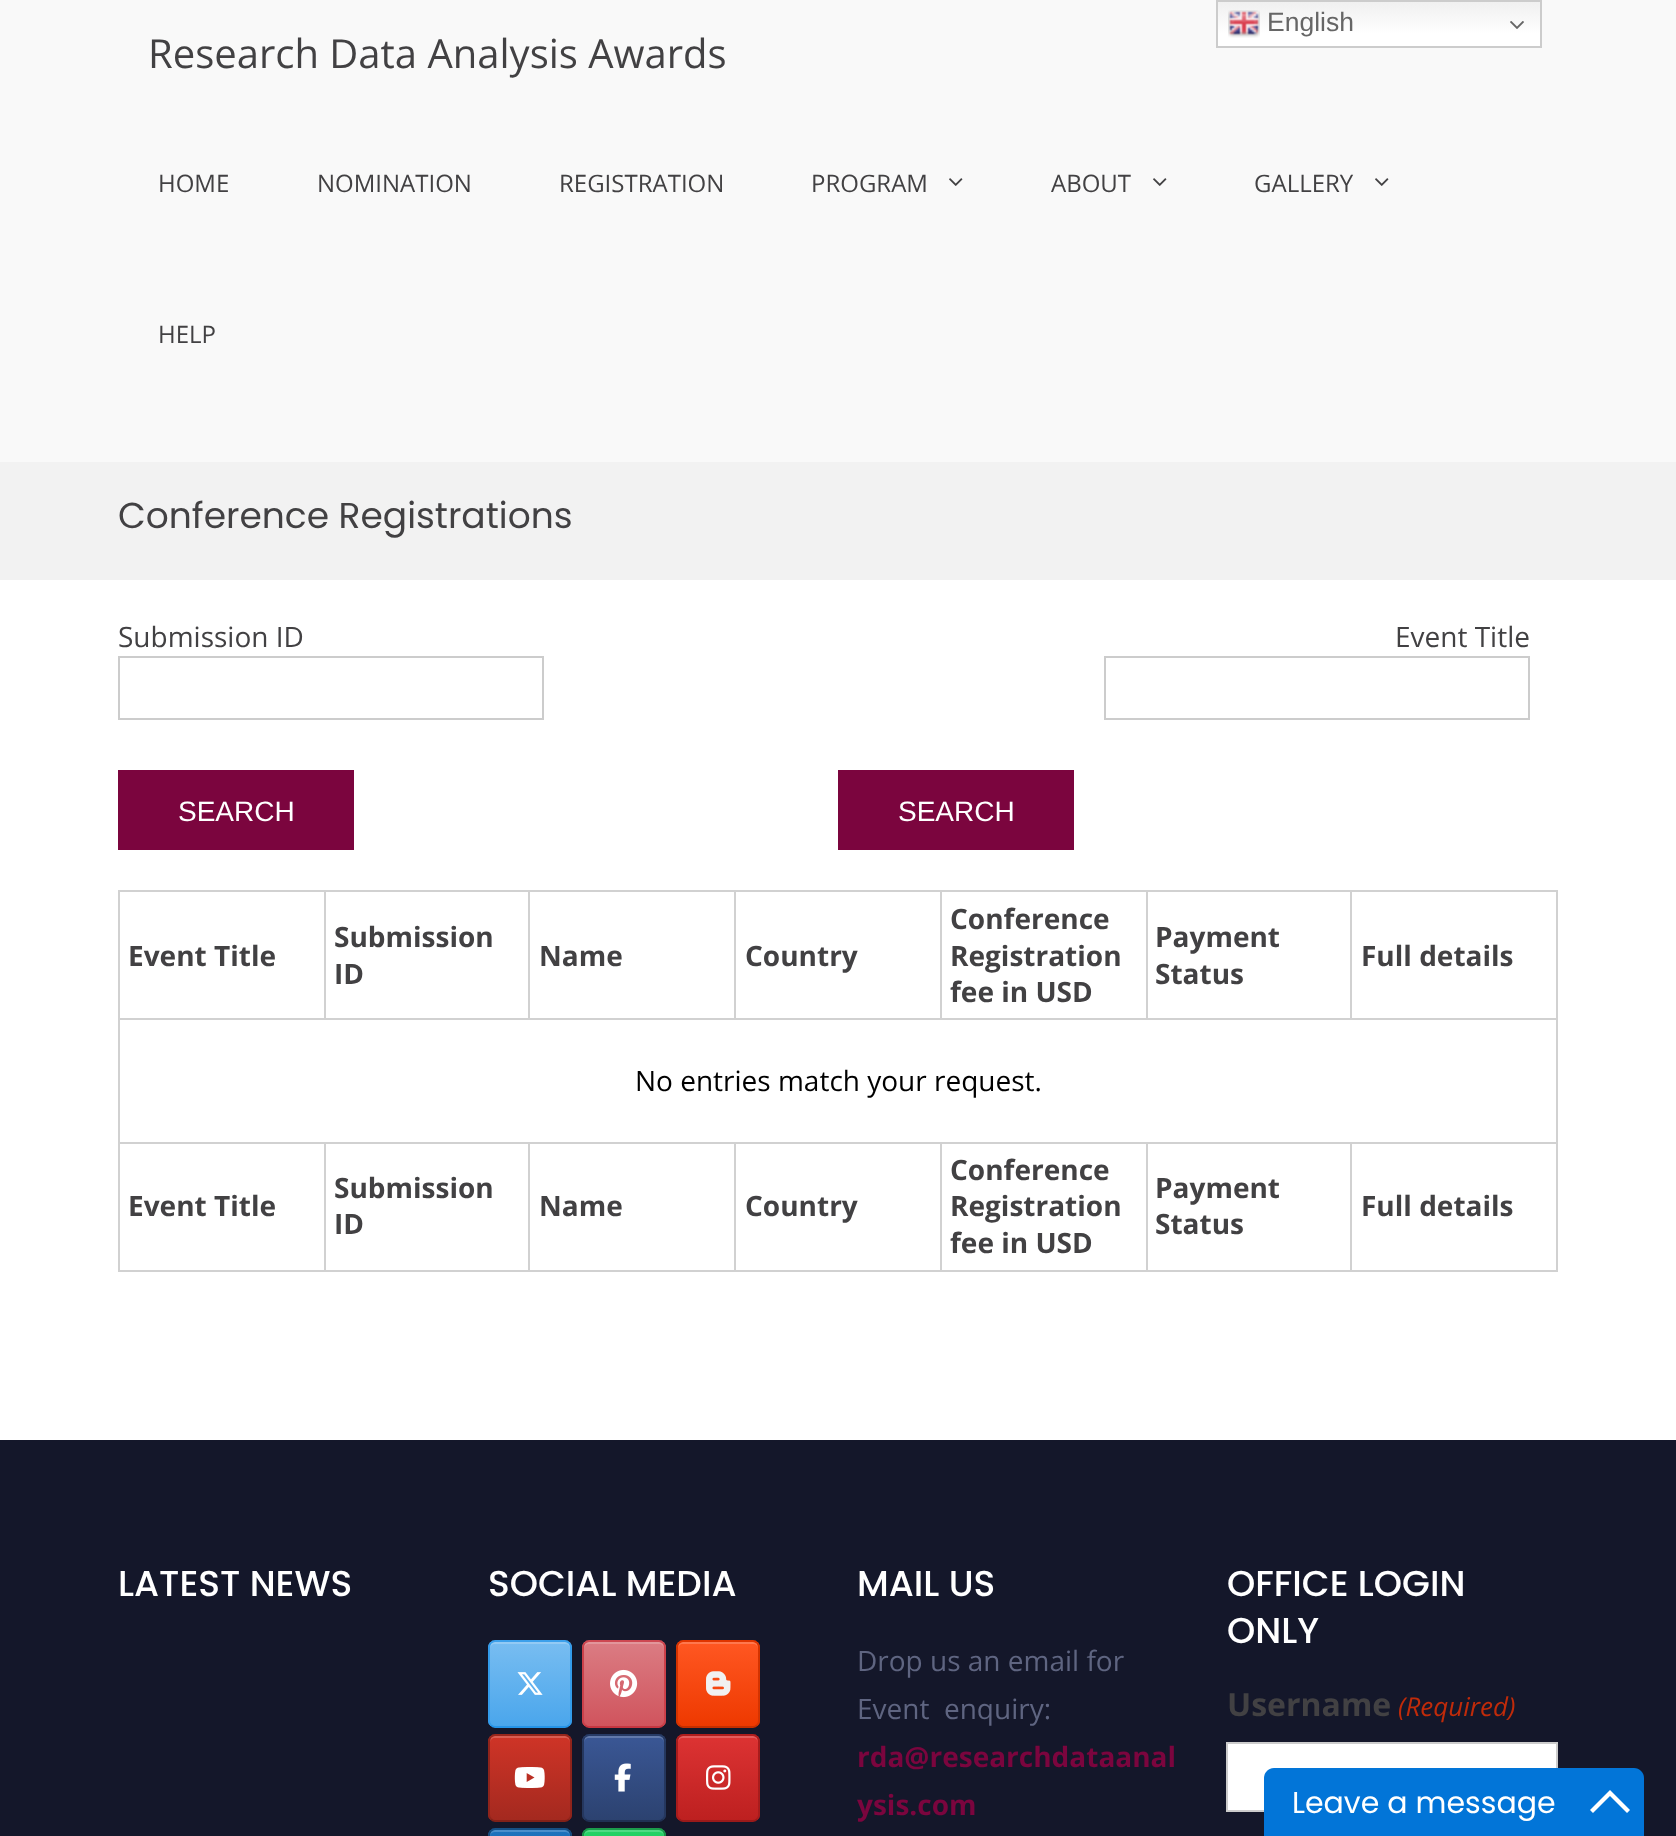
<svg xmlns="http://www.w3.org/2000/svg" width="1676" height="1836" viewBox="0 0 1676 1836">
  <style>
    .t1 { font: 26.5px Liberation Sans; fill: #666; }
    .t2 { font: 40px Open Sans; fill: #424143; }
    .t3 { font: 24px Open Sans; fill: #424143; }
    .t4 { font: 36px Poppins; fill: #424143; }
    .t5 { font: 28px Open Sans; fill: #424143; }
    .t6 { font: 28px Liberation Sans; fill: #fff; }
    .t7 { font: bold 28px Open Sans; fill: #424143; }
    .t8 { font: 28px Open Sans; fill: #000; }
    .t9 { font: 500 36px Poppins; fill: #fff; }
    .t10 { font: 28px Open Sans; fill: #5f6581; }
    .t11 { font: bold 28px Open Sans; fill: #7b053e; }
    .t12 { font: bold 32px Open Sans; fill: #424143; }
    .t13 { font: italic 26px Open Sans; fill: #c02b0a; }
    .t14 { font: 30px Poppins; fill: #fff; }
  </style>
  <defs>
    <linearGradient id="g1" gradientUnits="userSpaceOnUse" x1="1379" y1="0" x2="1379" y2="48"><stop offset="0" stop-color="#efefef"/><stop offset="0.7" stop-color="#fff"/></linearGradient>
    <clipPath id="clip1"><rect x="488" y="1640" width="84" height="88" rx="8"/></clipPath>
    <linearGradient id="g2" gradientUnits="userSpaceOnUse" x1="490" y1="1726" x2="490" y2="1642"><stop offset="0" stop-color="#4aa6ec"/><stop offset="1" stop-color="#78bdf1"/></linearGradient>
    <clipPath id="clip2"><rect x="582" y="1640" width="84" height="88" rx="8"/></clipPath>
    <linearGradient id="g3" gradientUnits="userSpaceOnUse" x1="584" y1="1726" x2="584" y2="1642"><stop offset="0" stop-color="#d0545d"/><stop offset="1" stop-color="#db7c83"/></linearGradient>
    <clipPath id="clip3"><rect x="676" y="1640" width="84" height="88" rx="8"/></clipPath>
    <linearGradient id="g4" gradientUnits="userSpaceOnUse" x1="678" y1="1726" x2="678" y2="1642"><stop offset="0" stop-color="#ee3900"/><stop offset="1" stop-color="#ff5722"/></linearGradient>
    <clipPath id="clip4"><rect x="488" y="1734" width="84" height="88" rx="8"/></clipPath>
    <linearGradient id="g5" gradientUnits="userSpaceOnUse" x1="490" y1="1820" x2="490" y2="1736"><stop offset="0" stop-color="#a4291f"/><stop offset="1" stop-color="#cf3427"/></linearGradient>
    <clipPath id="clip5"><rect x="582" y="1734" width="84" height="88" rx="8"/></clipPath>
    <linearGradient id="g6" gradientUnits="userSpaceOnUse" x1="584" y1="1820" x2="584" y2="1736"><stop offset="0" stop-color="#2c4270"/><stop offset="1" stop-color="#3a5795"/></linearGradient>
    <clipPath id="clip6"><rect x="676" y="1734" width="84" height="88" rx="8"/></clipPath>
    <linearGradient id="g7" gradientUnits="userSpaceOnUse" x1="678" y1="1820" x2="678" y2="1736"><stop offset="0" stop-color="#bd2020"/><stop offset="1" stop-color="#d33"/></linearGradient>
    <clipPath id="clip7"><rect x="488" y="1828" width="84" height="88" rx="8"/></clipPath>
    <linearGradient id="g8" gradientUnits="userSpaceOnUse" x1="490" y1="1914" x2="490" y2="1830"><stop offset="0" stop-color="#175892"/><stop offset="1" stop-color="#1e73be"/></linearGradient>
    <clipPath id="clip8"><rect x="582" y="1828" width="84" height="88" rx="8"/></clipPath>
    <linearGradient id="g9" gradientUnits="userSpaceOnUse" x1="584" y1="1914" x2="584" y2="1830"><stop offset="0" stop-color="#1da851"/><stop offset="1" stop-color="#25d366"/></linearGradient>
  </defs>
  <rect width="100%" height="100%" fill="#fff"/>
  <rect x="0" y="0" width="1676" height="462" fill="#f9f9f9"/>
  <rect x="1218" y="2" width="322" height="44" fill="url(#g1)"/>
  <rect x="1217" y="1" width="324" height="46" fill="none" stroke="#ccc" stroke-width="2"/>
  <image x="1228" y="10" width="32" height="28" href="images/1.png"/>
  <text x="1267" y="31" class="t1">English</text>
  <image x="1510" y="21" width="14" height="8" href="images/2.png"/>
  <text x="148" y="68" class="t2">Research Data Analysis Awards</text>
  <text x="158" y="192" class="t3">HOME</text>
  <text x="317" y="192" class="t3">NOMINATION</text>
  <text x="559" y="192" class="t3">REGISTRATION</text>
  <text x="811" y="192" class="t3">PROGRAM</text>
  <image x="949" y="178" width="14" height="8" href="images/3.png"/>
  <text x="1051" y="192" class="t3">ABOUT</text>
  <image x="1153" y="178" width="14" height="8" href="images/3.png"/>
  <text x="1254" y="192" class="t3">GALLERY</text>
  <image x="1375" y="178" width="14" height="8" href="images/3.png"/>
  <text x="158" y="343" class="t3">HELP</text>
  <rect x="0" y="462" width="1676" height="118" fill="#f2f2f2"/>
  <text x="118" y="528" class="t4">Conference Registrations</text>
  <text x="118" y="647" class="t5">Submission ID</text>
  <rect x="119" y="657" width="424" height="62" fill="none" stroke="#ccc" stroke-width="2"/>
  <rect x="118" y="770" width="236" height="80" fill="#7b053e"/>
  <text x="178" y="821" class="t6">SEARCH</text>
  <text x="1395" y="647" class="t5">Event Title</text>
  <rect x="1105" y="657" width="424" height="62" fill="none" stroke="#ccc" stroke-width="2"/>
  <rect x="838" y="770" width="236" height="80" fill="#7b053e"/>
  <text x="898" y="821" class="t6">SEARCH</text>
  <rect x="118" y="890" width="1440" height="2" fill="#d1d1d1"/>
  <rect x="118" y="890" width="2" height="382" fill="#d1d1d1"/>
  <rect x="324" y="892" width="2" height="128" fill="#d1d1d1"/>
  <rect x="120" y="1018" width="206" height="2" fill="#d1d1d1"/>
  <text x="128" y="966" class="t7">Event Title</text>
  <rect x="528" y="892" width="2" height="128" fill="#d1d1d1"/>
  <rect x="326" y="1018" width="204" height="2" fill="#d1d1d1"/>
  <text x="334" y="947" class="t7">Submission</text>
  <text x="334" y="984" class="t7">ID</text>
  <rect x="734" y="892" width="2" height="128" fill="#d1d1d1"/>
  <rect x="530" y="1018" width="206" height="2" fill="#d1d1d1"/>
  <text x="539" y="966" class="t7">Name</text>
  <rect x="940" y="892" width="2" height="128" fill="#d1d1d1"/>
  <rect x="736" y="1018" width="206" height="2" fill="#d1d1d1"/>
  <text x="745" y="966" class="t7">Country</text>
  <rect x="1146" y="892" width="2" height="128" fill="#d1d1d1"/>
  <rect x="942" y="1018" width="206" height="2" fill="#d1d1d1"/>
  <text x="950" y="929" class="t7">Conference</text>
  <text x="950" y="966" class="t7">Registration</text>
  <text x="950" y="1002" class="t7">fee in USD</text>
  <rect x="1350" y="892" width="2" height="128" fill="#d1d1d1"/>
  <rect x="1148" y="1018" width="204" height="2" fill="#d1d1d1"/>
  <text x="1155" y="947" class="t7">Payment</text>
  <text x="1155" y="984" class="t7">Status</text>
  <rect x="1556" y="892" width="2" height="380" fill="#d1d1d1"/>
  <rect x="1352" y="1018" width="206" height="2" fill="#d1d1d1"/>
  <text x="1361" y="966" class="t7">Full details</text>
  <rect x="120" y="1142" width="1438" height="2" fill="#d1d1d1"/>
  <text x="635" y="1091" class="t8">No entries match your request.</text>
  <rect x="324" y="1144" width="2" height="128" fill="#d1d1d1"/>
  <rect x="120" y="1270" width="206" height="2" fill="#d1d1d1"/>
  <text x="128" y="1216" class="t7">Event Title</text>
  <rect x="528" y="1144" width="2" height="128" fill="#d1d1d1"/>
  <rect x="326" y="1270" width="204" height="2" fill="#d1d1d1"/>
  <text x="334" y="1198" class="t7">Submission</text>
  <text x="334" y="1234" class="t7">ID</text>
  <rect x="734" y="1144" width="2" height="128" fill="#d1d1d1"/>
  <rect x="530" y="1270" width="206" height="2" fill="#d1d1d1"/>
  <text x="539" y="1216" class="t7">Name</text>
  <rect x="940" y="1144" width="2" height="128" fill="#d1d1d1"/>
  <rect x="736" y="1270" width="206" height="2" fill="#d1d1d1"/>
  <text x="745" y="1216" class="t7">Country</text>
  <rect x="1146" y="1144" width="2" height="128" fill="#d1d1d1"/>
  <rect x="942" y="1270" width="206" height="2" fill="#d1d1d1"/>
  <text x="950" y="1180" class="t7">Conference</text>
  <text x="950" y="1216" class="t7">Registration</text>
  <text x="950" y="1253" class="t7">fee in USD</text>
  <rect x="1350" y="1144" width="2" height="128" fill="#d1d1d1"/>
  <rect x="1148" y="1270" width="410" height="2" fill="#d1d1d1"/>
  <text x="1155" y="1198" class="t7">Payment</text>
  <text x="1155" y="1234" class="t7">Status</text>
  <text x="1361" y="1216" class="t7">Full details</text>
  <rect x="0" y="1440" width="1676" height="396" fill="#14172a"/>
  <text x="118" y="1596" class="t9">LATEST NEWS</text>
  <text x="488" y="1596" class="t9">SOCIAL MEDIA</text>
  <g clip-path="url(#clip1)">
    <rect x="488" y="1642" width="84" height="84" fill="url(#g2)"/>
  </g>
  <path d="M495 1644H565C568 1644 570 1646 570 1649C570 1639 562 1642 553 1642H507C498 1642 490 1639 490 1649C490 1646 492 1644 495 1644Z" fill="#93caf4"/>
  <path d="M491 1643C492 1641.5 493.5 1641 495 1641H565C566.5 1641 568 1641.5 569 1643" fill="none" stroke="#3ca0eb" stroke-width="2"/>
  <path d="M569 1643C570.5 1644 571 1645.5 571 1647V1721C571 1722.5 570.5 1724 569 1725" fill="none" stroke="#339bea" stroke-width="2"/>
  <path d="M569 1725C568 1726.5 566.5 1727 565 1727H495C493.5 1727 492 1726.5 491 1725" fill="none" stroke="#2594e8" stroke-width="2"/>
  <path d="M491 1725C489.5 1724 489 1722.5 489 1721V1647C489 1645.5 489.5 1644 491 1643" fill="none" stroke="#339bea" stroke-width="2"/>
  <image x="517" y="1672" width="26" height="23" href="images/4.png"/>
  <g clip-path="url(#clip2)">
    <rect x="582" y="1642" width="84" height="84" fill="url(#g3)"/>
  </g>
  <path d="M589 1644H659C662 1644 664 1646 664 1649C664 1639 656 1642 647 1642H601C592 1642 584 1639 584 1649C584 1646 586 1644 589 1644Z" fill="#e2969b"/>
  <path d="M585 1643C586 1641.5 587.5 1641 589 1641H659C660.5 1641 662 1641.5 663 1643" fill="none" stroke="#cd4852" stroke-width="2"/>
  <path d="M663 1643C664.5 1644 665 1645.5 665 1647V1721C665 1722.5 664.5 1724 663 1725" fill="none" stroke="#cb404a" stroke-width="2"/>
  <path d="M663 1725C662 1726.5 660.5 1727 659 1727H589C587.5 1727 586 1726.5 585 1725" fill="none" stroke="#c53641" stroke-width="2"/>
  <path d="M585 1725C583.5 1724 583 1722.5 583 1721V1647C583 1645.5 583.5 1644 585 1643" fill="none" stroke="#cb404a" stroke-width="2"/>
  <image x="610" y="1669" width="28" height="29" href="images/5.png"/>
  <g clip-path="url(#clip3)">
    <rect x="676" y="1642" width="84" height="84" fill="url(#g4)"/>
  </g>
  <path d="M683 1644H753C756 1644 758 1646 758 1649C758 1639 750 1642 741 1642H695C686 1642 678 1639 678 1649C678 1646 680 1644 683 1644Z" fill="#ff784e"/>
  <path d="M679 1643C680 1641.5 681.5 1641 683 1641H753C754.5 1641 756 1641.5 757 1643" fill="none" stroke="#df3500" stroke-width="2"/>
  <path d="M757 1643C758.5 1644 759 1645.5 759 1647V1721C759 1722.5 758.5 1724 757 1725" fill="none" stroke="#d43300" stroke-width="2"/>
  <path d="M757 1725C756 1726.5 754.5 1727 753 1727H683C681.5 1727 680 1726.5 679 1725" fill="none" stroke="#c52f00" stroke-width="2"/>
  <path d="M679 1725C677.5 1724 677 1722.5 677 1721V1647C677 1645.5 677.5 1644 679 1643" fill="none" stroke="#d43300" stroke-width="2"/>
  <image x="706" y="1671" width="25" height="25" href="images/6.png"/>
  <g clip-path="url(#clip4)">
    <rect x="488" y="1736" width="84" height="84" fill="url(#g5)"/>
  </g>
  <path d="M495 1738H565C568 1738 570 1740 570 1743C570 1733 562 1736 553 1736H507C498 1736 490 1733 490 1743C490 1740 492 1738 495 1738Z" fill="#d85d52"/>
  <path d="M491 1737C492 1735.5 493.5 1735 495 1735H565C566.5 1735 568 1735.5 569 1737" fill="none" stroke="#97261c" stroke-width="2"/>
  <path d="M569 1737C570.5 1738 571 1739.5 571 1741V1815C571 1816.5 570.5 1818 569 1819" fill="none" stroke="#8f241b" stroke-width="2"/>
  <path d="M569 1819C568 1820.5 566.5 1821 565 1821H495C493.5 1821 492 1820.5 491 1819" fill="none" stroke="#822118" stroke-width="2"/>
  <path d="M491 1819C489.5 1818 489 1816.5 489 1815V1741C489 1739.5 489.5 1738 491 1737" fill="none" stroke="#8f241b" stroke-width="2"/>
  <image x="514" y="1767" width="31" height="21" href="images/7.png"/>
  <g clip-path="url(#clip5)">
    <rect x="582" y="1736" width="84" height="84" fill="url(#g6)"/>
  </g>
  <path d="M589 1738H659C662 1738 664 1740 664 1743C664 1733 656 1736 647 1736H601C592 1736 584 1733 584 1743C584 1740 586 1738 589 1738Z" fill="#6179aa"/>
  <path d="M585 1737C586 1735.5 587.5 1735 589 1735H659C660.5 1735 662 1735.5 663 1737" fill="none" stroke="#273b65" stroke-width="2"/>
  <path d="M663 1737C664.5 1738 665 1739.5 665 1741V1815C665 1816.5 664.5 1818 663 1819" fill="none" stroke="#25375e" stroke-width="2"/>
  <path d="M663 1819C662 1820.5 660.5 1821 659 1821H589C587.5 1821 586 1820.5 585 1819" fill="none" stroke="#203053" stroke-width="2"/>
  <path d="M585 1819C583.5 1818 583 1816.5 583 1815V1741C583 1739.5 583.5 1738 585 1737" fill="none" stroke="#25375e" stroke-width="2"/>
  <image x="614" y="1763" width="17" height="29" href="images/8.png"/>
  <g clip-path="url(#clip6)">
    <rect x="676" y="1736" width="84" height="84" fill="url(#g7)"/>
  </g>
  <path d="M683 1738H753C756 1738 758 1740 758 1743C758 1733 750 1736 741 1736H695C686 1736 678 1733 678 1743C678 1740 680 1738 683 1738Z" fill="#e35c5c"/>
  <path d="M679 1737C680 1735.5 681.5 1735 683 1735H753C754.5 1735 756 1735.5 757 1737" fill="none" stroke="#b01d1d" stroke-width="2"/>
  <path d="M757 1737C758.5 1738 759 1739.5 759 1741V1815C759 1816.5 758.5 1818 757 1819" fill="none" stroke="#a81c1c" stroke-width="2"/>
  <path d="M757 1819C756 1820.5 754.5 1821 753 1821H683C681.5 1821 680 1820.5 679 1819" fill="none" stroke="#9a1a1a" stroke-width="2"/>
  <path d="M679 1819C677.5 1818 677 1816.5 677 1815V1741C677 1739.5 677.5 1738 679 1737" fill="none" stroke="#a81c1c" stroke-width="2"/>
  <image x="706" y="1765" width="25" height="25" href="images/9.png"/>
  <g clip-path="url(#clip7)">
    <rect x="488" y="1830" width="84" height="6" fill="url(#g8)"/>
  </g>
  <path d="M495 1832H565C568 1832 570 1834 570 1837C570 1827 562 1830 553 1830H507C498 1830 490 1827 490 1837C490 1834 492 1832 495 1832Z" fill="#4b8fcb"/>
  <path d="M491 1831C492 1829.5 493.5 1829 495 1829H565C566.5 1829 568 1829.5 569 1831" fill="none" stroke="#155085" stroke-width="2"/>
  <path d="M569 1831C570.5 1832 571 1833.5 571 1835V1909C571 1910.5 570.5 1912 569 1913" fill="none" stroke="#144b7c" stroke-width="2"/>
  <path d="M491 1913C489.5 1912 489 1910.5 489 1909V1835C489 1833.5 489.5 1832 491 1831" fill="none" stroke="#144b7c" stroke-width="2"/>
  <g clip-path="url(#clip8)">
    <rect x="582" y="1830" width="84" height="6" fill="url(#g9)"/>
  </g>
  <path d="M589 1832H659C662 1832 664 1834 664 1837C664 1827 656 1830 647 1830H601C592 1830 584 1827 584 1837C584 1834 586 1832 589 1832Z" fill="#51db85"/>
  <path d="M585 1831C586 1829.5 587.5 1829 589 1829H659C660.5 1829 662 1829.5 663 1831" fill="none" stroke="#1b9b4b" stroke-width="2"/>
  <path d="M663 1831C664.5 1832 665 1833.5 665 1835V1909C665 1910.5 664.5 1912 663 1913" fill="none" stroke="#1a9247" stroke-width="2"/>
  <path d="M585 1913C583.5 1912 583 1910.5 583 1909V1835C583 1833.5 583.5 1832 585 1831" fill="none" stroke="#1a9247" stroke-width="2"/>
  <text x="857" y="1596" class="t9">MAIL US</text>
  <text x="857" y="1671" class="t10">Drop us an email for</text>
  <text x="857" y="1719" class="t10" xml:space="preserve">Event  enquiry:</text>
  <text x="857" y="1767" class="t11">rda@researchdataanal</text>
  <text x="857" y="1815" class="t11">ysis.com</text>
  <text x="1227" y="1596" class="t9">OFFICE LOGIN</text>
  <text x="1227" y="1643" class="t9">ONLY</text>
  <text x="1227" y="1716" class="t12">Username</text>
  <text x="1398" y="1716" class="t13">(Required)</text>
  <rect x="1227" y="1743" width="330" height="68" fill="#fff" stroke="#ccc" stroke-width="2"/>
  <path d="M1274 1768H1634C1639.5 1768 1644 1772.5 1644 1778V1836H1264V1778C1264 1772.5 1268.5 1768 1274 1768Z" fill="#0275d8"/>
  <text x="1292" y="1813" class="t14">Leave a message</text>
  <path d="M1610 1790L1630 1810L1627 1813L1610 1796L1593 1813L1590 1810Z" fill="#fff"/>
</svg>
